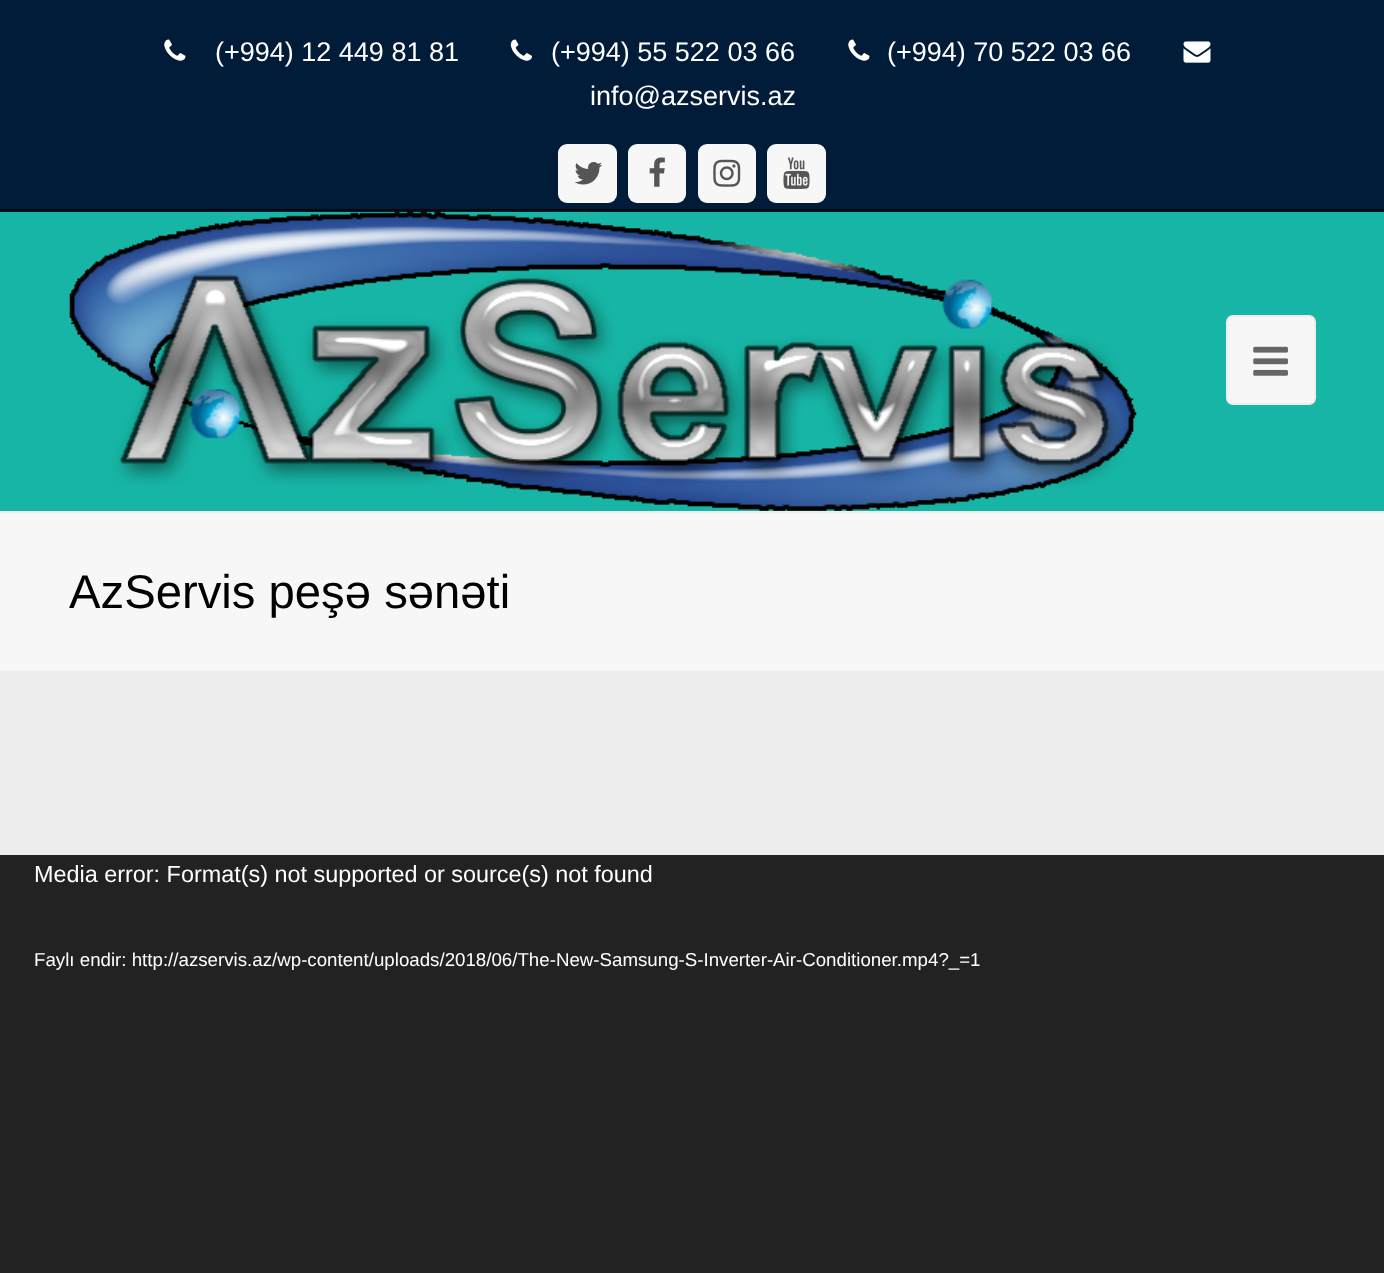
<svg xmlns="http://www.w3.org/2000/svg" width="1384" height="1273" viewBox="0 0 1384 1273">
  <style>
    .t1 { font: 27px Liberation Sans; fill: #fff; }
    .t2 { font: 47.25px Liberation Sans; fill: #000; }
    .t3 { font: 23.4px Liberation Sans; fill: #fff; }
    .t4 { font: 18.72px Liberation Sans; fill: #fff; }
  </style>
  <rect width="100%" height="100%" fill="#ededed"/>
  <rect x="0" y="0" width="1384" height="212" fill="#001c38"/>
  <rect x="0" y="209" width="1384" height="2" fill="#0a0a0a"/>
  <image x="164" y="39" width="22" height="22" href="images/1.png"/>
  <text x="215" y="61" class="t1">(+994) 12 449 81 81</text>
  <image x="510" y="39" width="22" height="22" href="images/2.png"/>
  <text x="551" y="61" class="t1">(+994) 55 522 03 66</text>
  <image x="848" y="39" width="22" height="22" href="images/1.png"/>
  <text x="887" y="61" class="t1">(+994) 70 522 03 66</text>
  <image x="1183" y="41" width="28" height="22" href="images/3.png"/>
  <text x="590" y="105" class="t1">info@azservis.az</text>
  <rect x="558" y="144" width="59" height="59" rx="9" fill="#f7f7f7"/>
  <image x="574" y="162" width="28" height="23" href="images/4.png"/>
  <rect x="628" y="144" width="58" height="59" rx="9" fill="#f7f7f7"/>
  <image x="649" y="157" width="16" height="30" href="images/5.png"/>
  <rect x="698" y="144" width="58" height="59" rx="9" fill="#f7f7f7"/>
  <image x="713" y="159" width="28" height="28" href="images/6.png"/>
  <rect x="767" y="144" width="59" height="59" rx="9" fill="#f7f7f7"/>
  <image x="783" y="157" width="27" height="32" href="images/7.png"/>
  <rect x="0" y="212" width="1384" height="299" fill="#17b5a5"/>
  <image x="69" y="211" width="1068" height="300" href="images/8.png"/>
  <rect x="1227" y="316" width="88" height="88" rx="6" fill="#f7f7f7" stroke="#eee" stroke-width="2"/>
  <image x="1253" y="346" width="35" height="30" href="images/9.png"/>
  <rect x="0" y="513" width="1384" height="158" fill="#f7f7f7"/>
  <text x="69" y="608" class="t2">AzServis peşə sənəti</text>
  <rect x="0" y="855" width="1384" height="418" fill="#222"/>
  <text x="34" y="882" class="t3">Media error: Format(s) not supported or source(s) not found</text>
  <text x="34" y="966" class="t4">Faylı endir: http://azservis.az/wp-content/uploads/2018/06/The-New-Samsung-S-Inverter-Air-Conditioner.mp4?_=1</text>
</svg>
